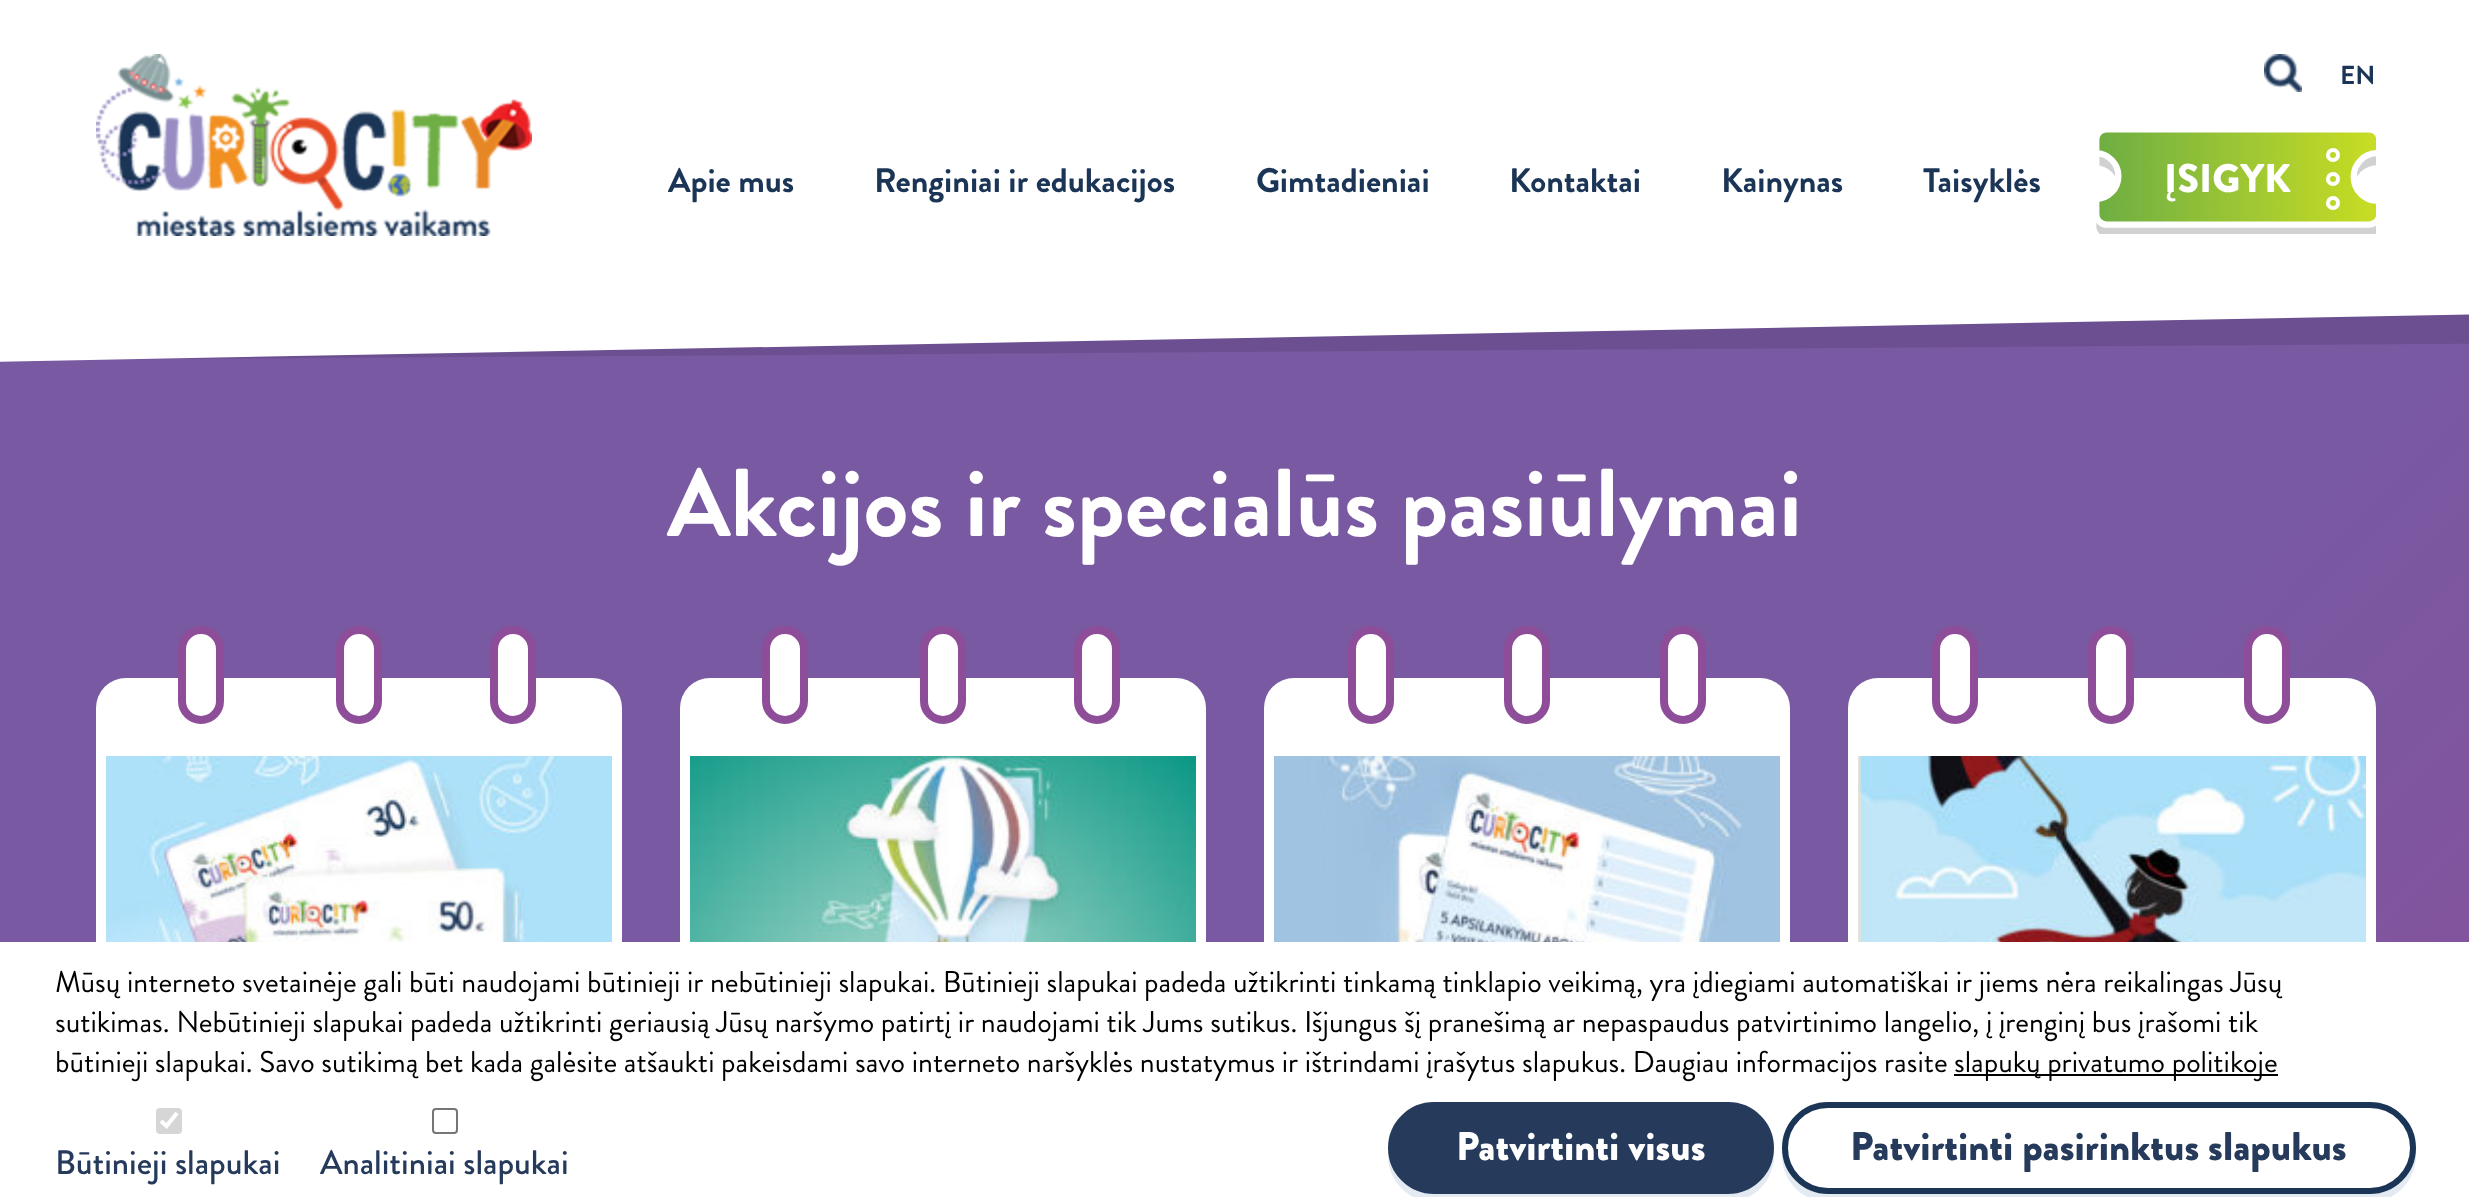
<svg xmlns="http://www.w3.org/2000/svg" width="2469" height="1197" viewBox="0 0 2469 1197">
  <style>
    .t1 { font: 26px Brandon Grotesque; fill: #1b3557; }
    .t2 { font: 34px Brandon Grotesque; fill: #1b3557; }
    .t3 { font: 500 40px Brandon Grotesque; fill: #fff; }
    .t4 { font: 96px Brandon Grotesque; fill: #fff; }
    .t5 { font: 30px 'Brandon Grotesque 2'; fill: #000; }
    .t6 { font: 34px 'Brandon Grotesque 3'; fill: #263b5c; }
    .t7 { font: 500 40px Brandon Grotesque; fill: #263b5c; }
  </style>
  <defs>
    <linearGradient id="g1" gradientUnits="userSpaceOnUse" x1="-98" y1="239" x2="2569" y2="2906"><stop offset="0" stop-color="#7959a2"/><stop offset="0.5" stop-color="#7959a2"/><stop offset="1" stop-color="#a24190"/></linearGradient>
  </defs>
  <rect width="100%" height="100%" fill="#fff"/>
  <path d="M0 276V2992L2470 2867V151Z" fill="url(#g1)"/>
  <path d="M-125-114L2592-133L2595 343L-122 361Z" fill="#0000001a"/>
  <path d="M-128-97L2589-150L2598 312L-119 364Z" fill="#fff"/>
  <image x="96" y="54" width="436" height="182" href="images/1.png"/>
  <image x="2264" y="54" width="38" height="38" href="images/2.png"/>
  <text x="2340" y="84" class="t1">EN</text>
  <text x="668" y="192" class="t2">Apie mus</text>
  <text x="874" y="192" class="t2">Renginiai ir edukacijos</text>
  <text x="1256" y="192" class="t2">Gimtadieniai</text>
  <text x="1509" y="192" class="t2">Kontaktai</text>
  <text x="1721" y="192" class="t2">Kainynas</text>
  <text x="1923" y="192" class="t2">Taisyklės</text>
  <image x="2096" y="132" width="280" height="102" href="images/3.png"/>
  <text x="2164" y="192" class="t3">ĮSIGYK</text>
  <circle cx="2333" cy="179" r="5" fill="none" stroke="#fff" stroke-width="4"/>
  <circle cx="2333" cy="155" r="5" fill="none" stroke="#fff" stroke-width="4"/>
  <circle cx="2333" cy="203" r="5" fill="none" stroke="#fff" stroke-width="4"/>
  <text x="667" y="536" class="t4">Akcijos ir specialūs pasiūlymai</text>
  <rect x="96" y="678" width="526" height="428" rx="30" fill="#fff"/>
  <rect x="340" y="630" width="38" height="90" rx="19" fill="#fff" stroke="#8d4d99" stroke-width="8"/>
  <rect x="182" y="630" width="38" height="90" rx="19" fill="#fff" stroke="#8d4d99" stroke-width="8"/>
  <rect x="494" y="630" width="38" height="90" rx="19" fill="#fff" stroke="#8d4d99" stroke-width="8"/>
  <image x="106" y="756" width="506" height="186" href="images/4.png"/>
  <rect x="680" y="678" width="526" height="428" rx="30" fill="#fff"/>
  <rect x="924" y="630" width="38" height="90" rx="19" fill="#fff" stroke="#8d4d99" stroke-width="8"/>
  <rect x="766" y="630" width="38" height="90" rx="19" fill="#fff" stroke="#8d4d99" stroke-width="8"/>
  <rect x="1078" y="630" width="38" height="90" rx="19" fill="#fff" stroke="#8d4d99" stroke-width="8"/>
  <image x="690" y="756" width="506" height="186" href="images/5.png"/>
  <rect x="1264" y="678" width="526" height="428" rx="30" fill="#fff"/>
  <rect x="1508" y="630" width="38" height="90" rx="19" fill="#fff" stroke="#8d4d99" stroke-width="8"/>
  <rect x="1352" y="630" width="38" height="90" rx="19" fill="#fff" stroke="#8d4d99" stroke-width="8"/>
  <rect x="1664" y="630" width="38" height="90" rx="19" fill="#fff" stroke="#8d4d99" stroke-width="8"/>
  <image x="1274" y="756" width="506" height="186" href="images/6.png"/>
  <rect x="1848" y="678" width="528" height="428" rx="30" fill="#fff"/>
  <rect x="2092" y="630" width="38" height="90" rx="19" fill="#fff" stroke="#8d4d99" stroke-width="8"/>
  <rect x="1936" y="630" width="38" height="90" rx="19" fill="#fff" stroke="#8d4d99" stroke-width="8"/>
  <rect x="2248" y="630" width="38" height="90" rx="19" fill="#fff" stroke="#8d4d99" stroke-width="8"/>
  <image x="1858" y="756" width="508" height="186" href="images/7.png"/>
  <rect x="0" y="942" width="2469" height="255" fill="#fff"/>
  <text x="55" y="992" class="t5">Mūsų interneto svetainėje gali būti naudojami būtinieji ir nebūtinieji slapukai. Būtinieji slapukai padeda užtikrinti tinkamą tinklapio veikimą, yra įdiegiami automatiškai ir jiems nėra reikalingas Jūsų</text>
  <text x="55" y="1032" class="t5">sutikimas. Nebūtinieji slapukai padeda užtikrinti geriausią Jūsų naršymo patirtį ir naudojami tik Jums sutikus. Išjungus šį pranešimą ar nepaspaudus patvirtinimo langelio, į įrenginį bus įrašomi tik</text>
  <text x="55" y="1072" class="t5">būtinieji slapukai. Savo sutikimą bet kada galėsite atšaukti pakeisdami savo interneto naršyklės nustatymus ir ištrindami įrašytus slapukus. Daugiau informacijos rasite</text>
  <rect x="1954" y="1074" width="324" height="2" fill="#000"/>
  <text x="1954" y="1072" class="t5">slapukų privatumo politikoje</text>
  <rect x="156" y="1108" width="26" height="26" rx="4" fill="#d6d6d6"/>
  <path d="M161 1121L166.5 1126L177 1113" fill="none" stroke="#fff" stroke-width="4.2"/>
  <text x="55" y="1174" class="t6">Būtinieji slapukai</text>
  <rect x="433" y="1109" width="24" height="24" rx="3" fill="none" stroke="#767676" stroke-width="2"/>
  <text x="320" y="1174" class="t6">Analitiniai slapukai</text>
  <path d="M1388 1152V1156C1388 1181 1409 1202 1434 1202H1728C1753 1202 1774 1181 1774 1156V1152C1772 1176 1752 1194 1728 1194H1434C1410 1194 1390 1176 1388 1152Z" fill="#e3eaf2"/>
  <rect x="1391" y="1105" width="380" height="86" rx="43" fill="#263b5c" stroke="#263b5c" stroke-width="6"/>
  <text x="1456" y="1160" class="t3">Patvirtinti visus</text>
  <path d="M1782 1152V1156C1782 1181 1803 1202 1828 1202H2370C2395 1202 2416 1181 2416 1156V1152C2414 1176 2394 1194 2370 1194H1828C1804 1194 1784 1176 1782 1152Z" fill="#e3eaf2"/>
  <rect x="1785" y="1105" width="628" height="86" rx="43" fill="none" stroke="#1b3557" stroke-width="6"/>
  <text x="1850" y="1160" class="t7">Patvirtinti pasirinktus slapukus</text>
</svg>
